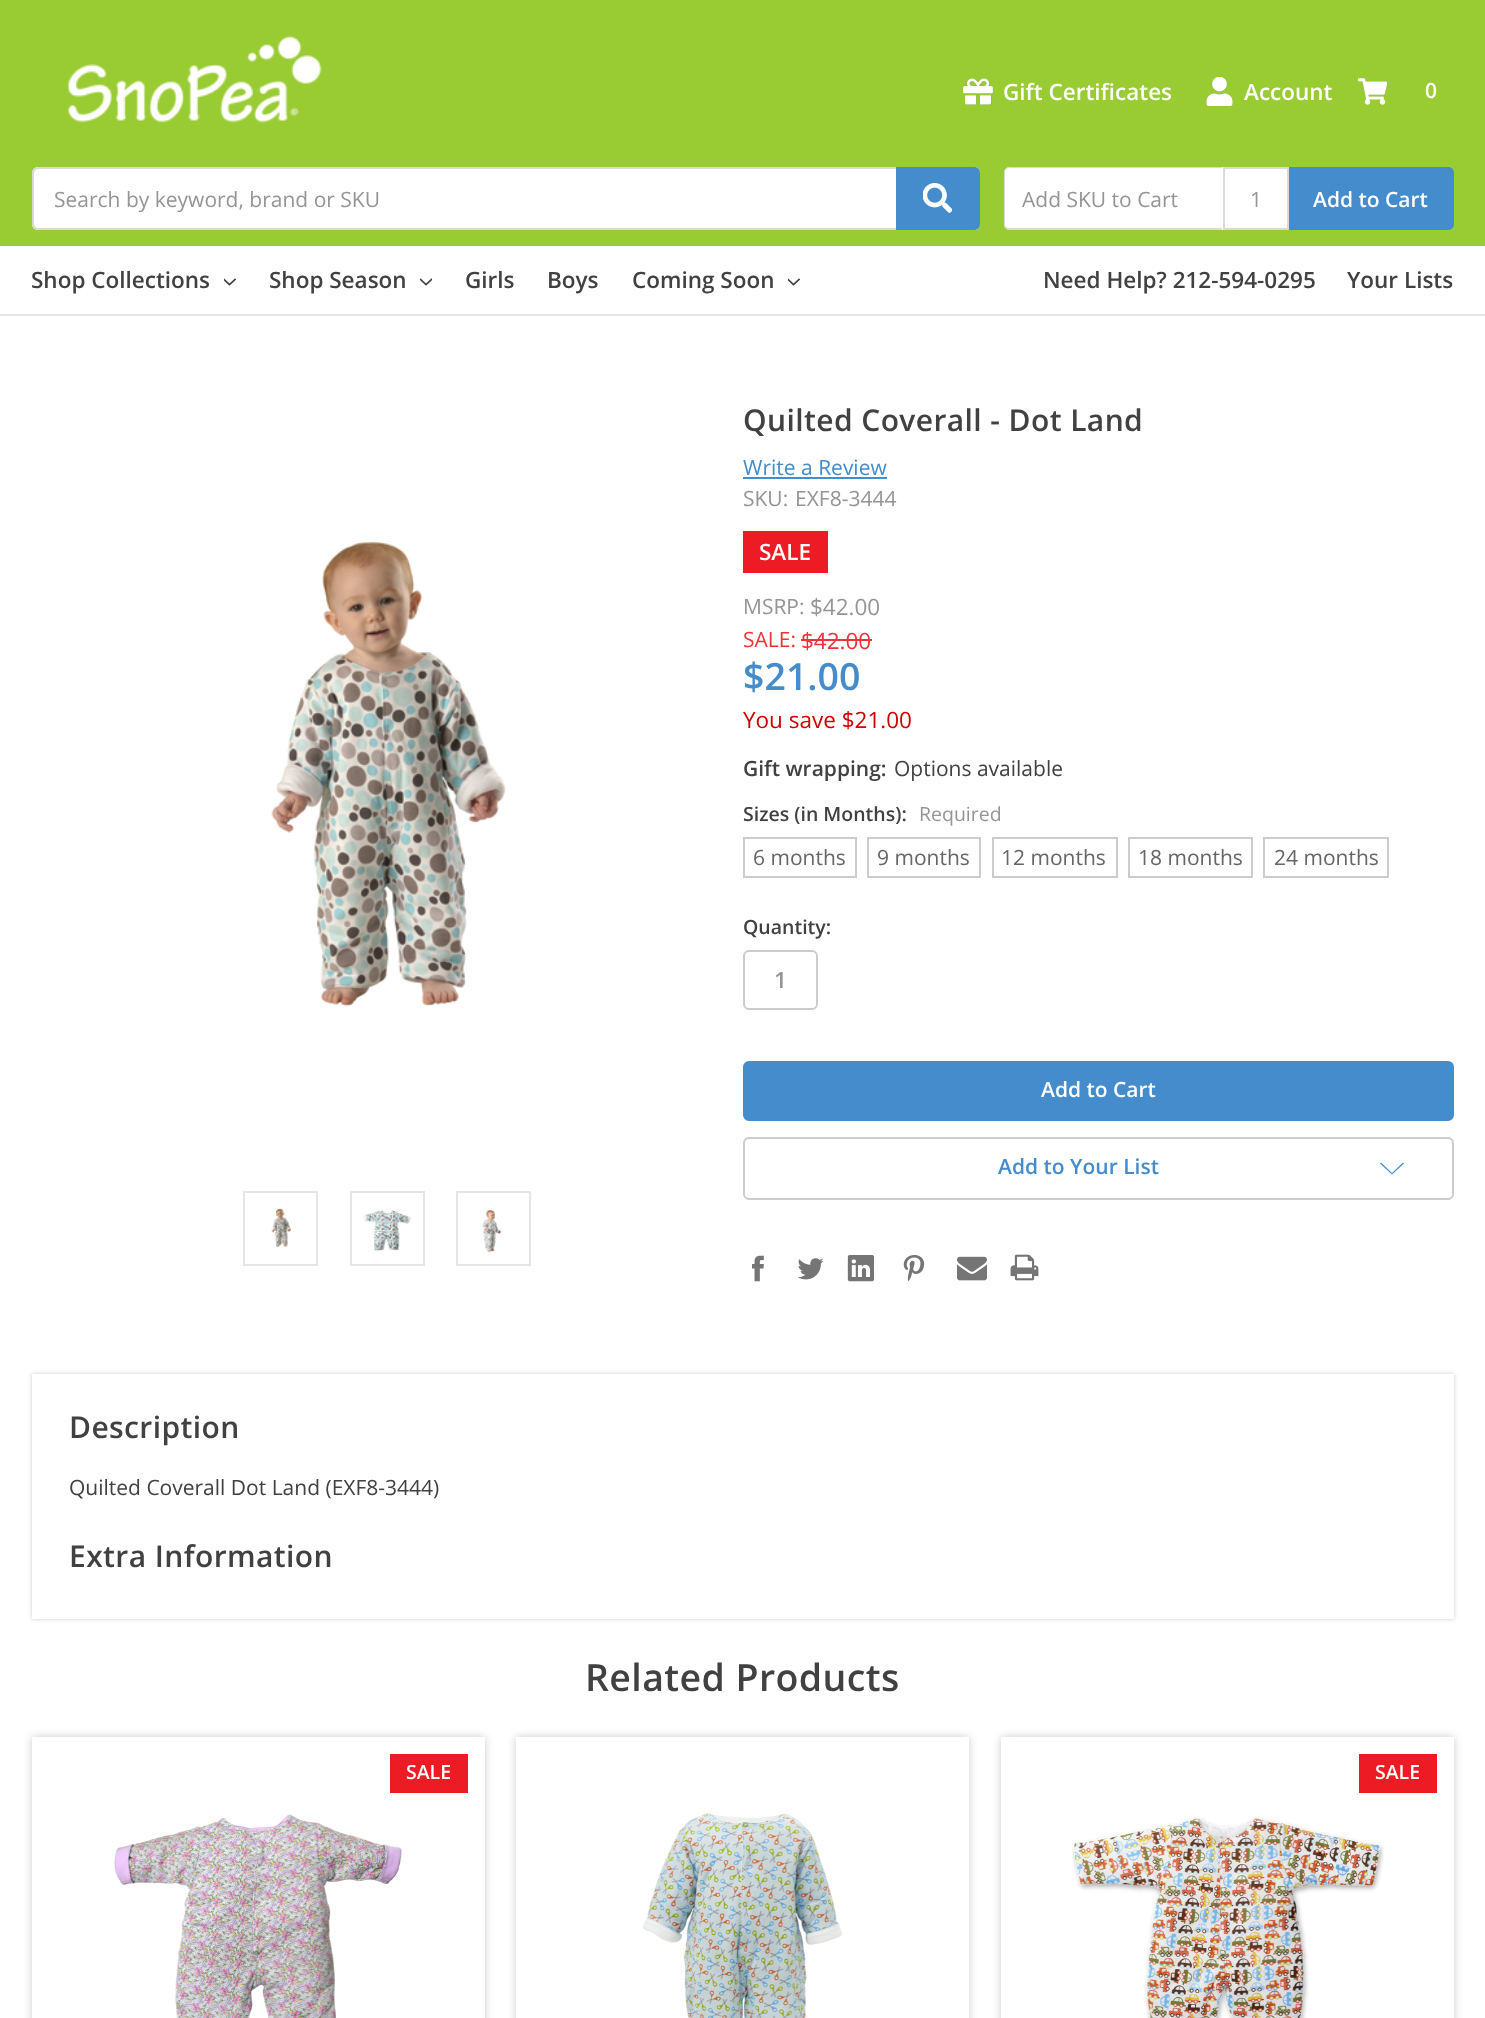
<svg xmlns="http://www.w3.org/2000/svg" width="1485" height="2018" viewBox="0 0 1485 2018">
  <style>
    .t1 { font: 600 22.5px Open Sans; fill: #fff; }
    .t2 { font: 600 21px Open Sans; fill: #fff; }
    .t3 { font: 21px Open Sans; fill: #959595; }
    .t4 { font: 600 22.5px Open Sans; fill: #414141; }
    .t5 { font: 600 30px Open Sans; letter-spacing: 0.4px; fill: #414141; }
    .t6 { font: 21px Open Sans; fill: #448ccb; }
    .t7 { font: 22.5px Open Sans; fill: #959595; }
    .t8 { font: 21px Open Sans; fill: #ee3339; }
    .t9 { font: 22.5px Open Sans; fill: #ee3339; }
    .t10 { font: 600 37.5px Open Sans; fill: #448ccb; }
    .t11 { font: 22.5px Open Sans; fill: #c00; }
    .t12 { font: 600 21px Open Sans; fill: #414141; }
    .t13 { font: 21px Open Sans; fill: #414141; }
    .t14 { font: 600 19.5px Open Sans; fill: #414141; }
    .t15 { font: 19.5px Open Sans; fill: #959595; }
    .t16 { font: 21px Open Sans; fill: #666; }
    .t17 { font: 600 22.5px Open Sans; fill: #959595; }
    .t18 { font: 600 21px Open Sans; fill: #448ccb; }
    .t19 { font: 600 37.5px Open Sans; letter-spacing: 0.4px; fill: #414141; }
    .t20 { font: 600 19.5px Open Sans; fill: #fff; }
  </style>
  <defs>
    <clipPath id="clip1"><path d="M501 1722H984V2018H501ZM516 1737H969V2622H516Z" clip-rule="evenodd"/></clipPath>
  </defs>
  <rect width="100%" height="100%" fill="#fff"/>
  <rect x="0" y="0" width="1485" height="246" fill="#9c3"/>
  <rect x="0" y="314" width="1485" height="2" fill="#e5e5e5"/>
  <image x="67" y="35" width="255" height="88" href="images/1.png"/>
  <image x="963" y="78" width="30" height="27" href="images/2.png"/>
  <text x="1003" y="100" class="t1">Gift Certificates</text>
  <image x="1206" y="77" width="27" height="29" href="images/3.png"/>
  <text x="1244" y="100" class="t1">Account</text>
  <image x="1358" y="78" width="29" height="27" href="images/4.png"/>
  <text x="1425" y="98" class="t2">0</text>
  <rect x="32" y="167" width="948" height="63" rx="6" fill="#fff"/>
  <path d="M38 167C35 167 32 170 32 173V224C32 227 35 230 38 230H974C977 230 980 227 980 224V173C980 170 977 167 974 167ZM38 169C36 169 34 171 34 173V224C34 226 36 228 38 228H978V169Z" fill="#d9d9d9" fill-rule="evenodd"/>
  <text x="54" y="207" class="t3">Search by keyword, brand or SKU</text>
  <path d="M896 167H974C977.5 167 980 169.5 980 173V224C980 227.5 977.5 230 974 230H896Z" fill="#448ccb"/>
  <image x="923" y="183" width="29" height="30" href="images/5.png"/>
  <path d="M1010 167H1223V230H1010C1006.5 230 1004 227.5 1004 224V173C1004 169.5 1006.5 167 1010 167Z" fill="#fff"/>
  <path d="M1009 168H1222V167H1010C1007 167 1004 170 1004 173V224C1004 227 1007 230 1010 230H1222V228H1009C1007 228 1005 226 1005 224V172C1005 170 1007 168 1009 168Z" fill="#d9d9d9"/>
  <text x="1022" y="207" class="t3">Add SKU to Cart</text>
  <rect x="1224" y="168" width="64" height="61" fill="#fff" stroke="#d9d9d9" stroke-width="2"/>
  <text x="1250" y="207" class="t3">1</text>
  <path d="M1289 167H1448C1451.5 167 1454 169.5 1454 173V224C1454 227.5 1451.5 230 1448 230H1289Z" fill="#448ccb"/>
  <text x="1313" y="207" class="t2">Add to Cart</text>
  <text x="31" y="288" class="t4">Shop Collections</text>
  <image x="224" y="278" width="12" height="8" href="images/6.png"/>
  <text x="269" y="288" class="t4">Shop Season</text>
  <image x="420" y="278" width="12" height="8" href="images/7.png"/>
  <text x="465" y="288" class="t4">Girls</text>
  <text x="547" y="288" class="t4">Boys</text>
  <text x="632" y="288" class="t4">Coming Soon</text>
  <image x="788" y="278" width="12" height="8" href="images/6.png"/>
  <text x="1043" y="288" class="t4">Need Help? 212-594-0295</text>
  <text x="1347" y="288" class="t4">Your Lists</text>
  <text x="743" y="431" class="t5">Quilted Coverall - Dot Land</text>
  <text x="743" y="475" class="t6">Write a Review</text>
  <rect x="743" y="477" width="144" height="2" fill="#448ccb"/>
  <text x="743" y="506" class="t3">SKU:</text>
  <text x="795" y="506" class="t3">EXF8-3444</text>
  <image x="271" y="541" width="235" height="466" href="images/8.png"/>
  <rect x="244" y="1192" width="73" height="73" fill="none" stroke="#e5e5e5" stroke-width="2"/>
  <image x="271" y="1208" width="20" height="39" href="images/9.png"/>
  <rect x="351" y="1192" width="73" height="73" fill="none" stroke="#e5e5e5" stroke-width="2"/>
  <image x="363" y="1210" width="48" height="41" href="images/10.png"/>
  <rect x="457" y="1192" width="73" height="73" fill="none" stroke="#e5e5e5" stroke-width="2"/>
  <image x="482" y="1209" width="20" height="43" href="images/11.png"/>
  <rect x="743" y="531" width="85" height="42" fill="#ed1c24"/>
  <text x="759" y="560" class="t1">SALE</text>
  <text x="743" y="614" class="t3">MSRP:</text>
  <text x="810" y="615" class="t7">$42.00</text>
  <text x="743" y="647" class="t8">SALE:</text>
  <text x="801" y="649" class="t9">$42.00</text>
  <rect x="801" y="639" width="71" height="2" fill="#ee3339"/>
  <text x="743" y="690" class="t10">$21.00</text>
  <text x="743" y="728" class="t11">You save $21.00</text>
  <text x="743" y="776" class="t12">Gift wrapping:</text>
  <text x="894" y="776" class="t13">Options available</text>
  <text x="743" y="821" class="t14">Sizes (in Months):</text>
  <text x="919" y="821" class="t15">Required</text>
  <rect x="744" y="838" width="112" height="39" fill="none" stroke="#ccc" stroke-width="2"/>
  <text x="753" y="865" class="t16">6 months</text>
  <rect x="868" y="838" width="112" height="39" fill="none" stroke="#ccc" stroke-width="2"/>
  <text x="877" y="865" class="t16">9 months</text>
  <rect x="993" y="838" width="124" height="39" fill="none" stroke="#ccc" stroke-width="2"/>
  <text x="1001" y="865" class="t16">12 months</text>
  <rect x="1129" y="838" width="123" height="39" fill="none" stroke="#ccc" stroke-width="2"/>
  <text x="1138" y="865" class="t16">18 months</text>
  <rect x="1264" y="838" width="124" height="39" fill="none" stroke="#ccc" stroke-width="2"/>
  <text x="1274" y="865" class="t16">24 months</text>
  <text x="743" y="934" class="t14">Quantity:</text>
  <rect x="744" y="951" width="73" height="58" rx="5" fill="none" stroke="#ccc" stroke-width="2"/>
  <text x="774" y="988" class="t17">1</text>
  <rect x="744" y="1062" width="709" height="58" rx="5" fill="#448ccb" stroke="#448ccb" stroke-width="2"/>
  <text x="1041" y="1097" class="t2">Add to Cart</text>
  <rect x="744" y="1138" width="709" height="61" rx="5" fill="none" stroke="#ccc" stroke-width="2"/>
  <text x="998" y="1174" class="t18">Add to Your List</text>
  <path d="M1392 1173L1403 1162.5L1404 1163.5L1392 1174.5L1380 1163.5L1381 1162.5Z" fill="#448ccb" fill-rule="evenodd"/>
  <image x="752" y="1255" width="12" height="27" href="images/12.png"/>
  <image x="797" y="1258" width="27" height="22" href="images/13.png"/>
  <image x="847" y="1255" width="27" height="27" href="images/14.png"/>
  <image x="903" y="1254" width="22" height="28" href="images/15.png"/>
  <image x="957" y="1256" width="30" height="25" href="images/16.png"/>
  <image x="1010" y="1254" width="29" height="27" href="images/17.png"/>
  <rect x="32" y="1374" width="1422" height="245" fill="#00000033" filter="blur(2px)"/>
  <rect x="32" y="1374" width="1422" height="245" fill="#fff"/>
  <text x="69" y="1438" class="t5">Description</text>
  <text x="69" y="1495" class="t13">Quilted Coverall Dot Land (EXF8-3444)</text>
  <text x="69" y="1567" class="t5">Extra Information</text>
  <text x="585" y="1691" class="t19">Related Products</text>
  <rect x="32" y="1737" width="453" height="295" fill="#00000033" filter="blur(4.5px)"/>
  <rect x="32" y="1737" width="453" height="281" fill="#fff"/>
  <rect x="390" y="1754" width="78" height="39" fill="#ed1c24"/>
  <text x="406" y="1779" class="t20">SALE</text>
  <image x="114" y="1814" width="288" height="204" href="images/18.png"/>
  <g clip-path="url(#clip1)">
    <rect x="516" y="1737" width="453" height="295" fill="#00000033" filter="blur(4.5px)"/>
  </g>
  <image x="642" y="1813" width="201" height="205" href="images/19.png"/>
  <rect x="1001" y="1737" width="453" height="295" fill="#00000033" filter="blur(4.5px)"/>
  <rect x="1001" y="1737" width="453" height="281" fill="#fff"/>
  <rect x="1359" y="1754" width="78" height="39" fill="#ed1c24"/>
  <text x="1375" y="1779" class="t20">SALE</text>
  <image x="1072" y="1817" width="312" height="201" href="images/20.png"/>
</svg>
